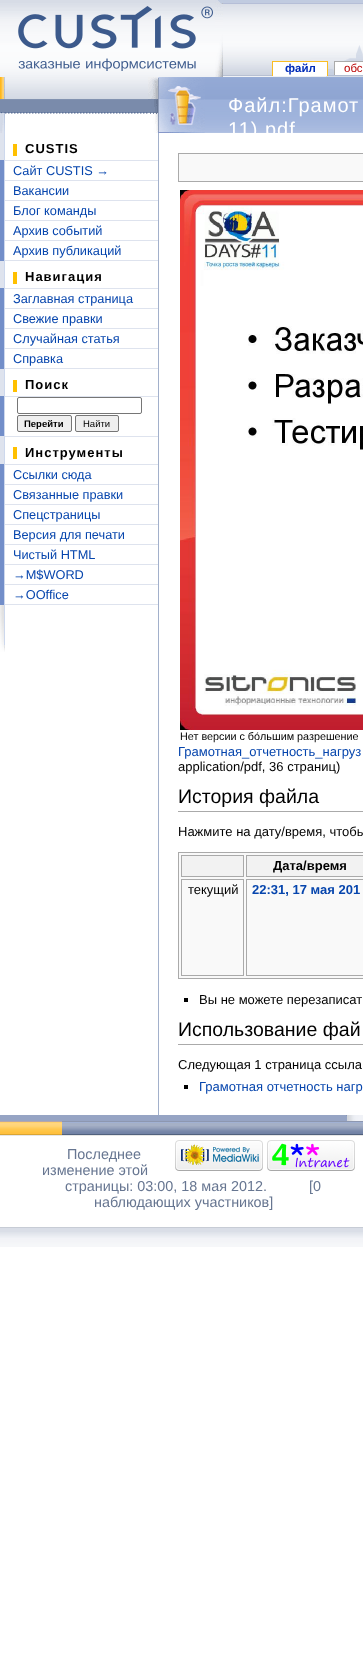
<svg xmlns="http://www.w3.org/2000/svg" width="363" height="1673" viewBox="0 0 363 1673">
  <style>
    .t1 { font: bold 11.5px Liberation Sans; fill: #002bb8; }
    .t2 { font: 11.5px Liberation Sans; fill: #ba0000; }
    .t3 { font: bold 13px Liberation Sans; letter-spacing: 1px; fill: #000; }
    .t4 { font: 12.75px Liberation Sans; fill: #0645ad; }
    .t5 { font: bold 9.5px Liberation Sans; fill: #000; }
    .t6 { font: 9.5px Liberation Sans; fill: #000; }
    .t7 { font: 20px Liberation Sans; letter-spacing: 1px; fill: #fff; }
    .t8 { font: 10.8px Liberation Sans; fill: #000; }
    .t9 { font: 13px Liberation Sans; fill: #0645ad; }
    .t10 { font: 13px Liberation Sans; fill: #000; }
    .t11 { font: 19.5px Liberation Sans; fill: #000; }
    .t12 { font: bold 13px Liberation Sans; fill: #000; }
    .t13 { font: bold 13px Liberation Sans; fill: #0645ad; }
    .t14 { font: 14.4px Liberation Sans; fill: #677691; }
  </style>
  <rect width="100%" height="100%" fill="#fff"/>
  <image x="0" y="0" width="363" height="77" href="images/1.png"/>
  <image x="0" y="0" width="215" height="76" href="images/2.png"/>
  <image x="18" y="6" width="195" height="65" href="images/3.png"/>
  <image x="215" y="0" width="8" height="77" href="images/4.png"/>
  <image x="311" y="45" width="52" height="32" href="images/5.png"/>
  <rect x="273" y="62" width="54" height="14" fill="#fff"/>
  <text x="285" y="72" class="t1">файл</text>
  <rect x="272" y="61" width="56" height="1" fill="#fabd23"/>
  <rect x="327" y="61" width="1" height="15" fill="#fabd23"/>
  <rect x="272" y="61" width="1" height="15" fill="#fabd23"/>
  <rect x="335" y="62" width="28" height="13" fill="#fff"/>
  <text x="344" y="72" class="t2">обс</text>
  <rect x="334" y="61" width="29" height="1" fill="#aaa"/>
  <rect x="334" y="61" width="1" height="14" fill="#aaa"/>
  <image x="0" y="77" width="5" height="56" href="images/6.png"/>
  <image x="5" y="77" width="143" height="37" href="images/7.png"/>
  <image x="148" y="77" width="10" height="56" href="images/8.png"/>
  <rect x="0" y="133" width="4" height="27" fill="#dee3ee"/>
  <rect x="4" y="133" width="1" height="27" fill="#cdd8ed"/>
  <rect x="13" y="144" width="4" height="12" fill="#ffc000"/>
  <text x="25" y="153" class="t3">CUSTIS</text>
  <rect x="0" y="160" width="5" height="1" fill="#728ec9"/>
  <rect x="4" y="160" width="1" height="20" fill="#cdd8ed"/>
  <rect x="5" y="160" width="153" height="1" fill="#dee3ee"/>
  <rect x="0" y="161" width="4" height="19" fill="#728ec9"/>
  <text x="13" y="175" class="t4">Сайт CUSTIS →</text>
  <rect x="0" y="180" width="5" height="1" fill="#728ec9"/>
  <rect x="4" y="180" width="1" height="20" fill="#cdd8ed"/>
  <rect x="5" y="180" width="153" height="1" fill="#dee3ee"/>
  <rect x="0" y="181" width="4" height="19" fill="#728ec9"/>
  <text x="13" y="195" class="t4">Вакансии</text>
  <rect x="0" y="200" width="5" height="1" fill="#728ec9"/>
  <rect x="4" y="200" width="1" height="20" fill="#cdd8ed"/>
  <rect x="5" y="200" width="153" height="1" fill="#dee3ee"/>
  <rect x="0" y="201" width="4" height="19" fill="#728ec9"/>
  <text x="13" y="215" class="t4">Блог команды</text>
  <rect x="0" y="220" width="5" height="1" fill="#728ec9"/>
  <rect x="4" y="220" width="1" height="20" fill="#cdd8ed"/>
  <rect x="5" y="220" width="153" height="1" fill="#dee3ee"/>
  <rect x="0" y="221" width="4" height="19" fill="#728ec9"/>
  <text x="13" y="235" class="t4">Архив событий</text>
  <rect x="0" y="240" width="5" height="1" fill="#728ec9"/>
  <rect x="4" y="240" width="1" height="20" fill="#cdd8ed"/>
  <rect x="5" y="240" width="153" height="1" fill="#dee3ee"/>
  <rect x="0" y="241" width="4" height="19" fill="#728ec9"/>
  <text x="13" y="255" class="t4">Архив публикаций</text>
  <rect x="0" y="260" width="5" height="1" fill="#728ec9"/>
  <rect x="4" y="260" width="1" height="28" fill="#cdd8ed"/>
  <rect x="5" y="260" width="153" height="1" fill="#dee3ee"/>
  <rect x="0" y="261" width="4" height="27" fill="#dee3ee"/>
  <rect x="13" y="272" width="4" height="12" fill="#ffc000"/>
  <text x="25" y="281" class="t3">Навигация</text>
  <rect x="0" y="288" width="5" height="1" fill="#728ec9"/>
  <rect x="4" y="288" width="1" height="20" fill="#cdd8ed"/>
  <rect x="5" y="288" width="153" height="1" fill="#dee3ee"/>
  <rect x="0" y="289" width="4" height="19" fill="#728ec9"/>
  <text x="13" y="303" class="t4">Заглавная страница</text>
  <rect x="0" y="308" width="5" height="1" fill="#728ec9"/>
  <rect x="4" y="308" width="1" height="20" fill="#cdd8ed"/>
  <rect x="5" y="308" width="153" height="1" fill="#dee3ee"/>
  <rect x="0" y="309" width="4" height="19" fill="#728ec9"/>
  <text x="13" y="323" class="t4">Свежие правки</text>
  <rect x="0" y="328" width="5" height="1" fill="#728ec9"/>
  <rect x="4" y="328" width="1" height="20" fill="#cdd8ed"/>
  <rect x="5" y="328" width="153" height="1" fill="#dee3ee"/>
  <rect x="0" y="329" width="4" height="19" fill="#728ec9"/>
  <text x="13" y="343" class="t4">Случайная статья</text>
  <rect x="0" y="348" width="5" height="1" fill="#728ec9"/>
  <rect x="4" y="348" width="1" height="20" fill="#cdd8ed"/>
  <rect x="5" y="348" width="153" height="1" fill="#dee3ee"/>
  <rect x="0" y="349" width="4" height="19" fill="#728ec9"/>
  <text x="13" y="363" class="t4">Справка</text>
  <rect x="0" y="368" width="5" height="1" fill="#728ec9"/>
  <rect x="4" y="368" width="1" height="28" fill="#cdd8ed"/>
  <rect x="5" y="368" width="153" height="1" fill="#dee3ee"/>
  <rect x="0" y="369" width="4" height="27" fill="#dee3ee"/>
  <rect x="13" y="380" width="4" height="12" fill="#ffc000"/>
  <text x="25" y="389" class="t3">Поиск</text>
  <rect x="0" y="396" width="5" height="1" fill="#728ec9"/>
  <rect x="4" y="396" width="1" height="40" fill="#cdd8ed"/>
  <rect x="5" y="396" width="153" height="1" fill="#dee3ee"/>
  <rect x="0" y="397" width="4" height="39" fill="#728ec9"/>
  <rect x="17.5" y="397.5" width="124" height="16" rx="1.5" fill="none" stroke="#767676"/>
  <rect x="17.5" y="415.5" width="54" height="16" rx="1.5" fill="#efefef" stroke="#767676"/>
  <text x="24" y="427" class="t5">Перейти</text>
  <rect x="75.5" y="415.5" width="43" height="16" rx="1.5" fill="#efefef" stroke="#767676"/>
  <text x="83" y="427" class="t6">Найти</text>
  <rect x="0" y="436" width="158" height="1" fill="#dee3ee"/>
  <rect x="4" y="436" width="1" height="28" fill="#cdd8ed"/>
  <rect x="0" y="437" width="4" height="27" fill="#dee3ee"/>
  <rect x="13" y="447" width="4" height="12" fill="#ffc000"/>
  <text x="25" y="457" class="t3">Инструменты</text>
  <rect x="0" y="464" width="5" height="1" fill="#728ec9"/>
  <rect x="4" y="464" width="1" height="20" fill="#cdd8ed"/>
  <rect x="5" y="464" width="153" height="1" fill="#dee3ee"/>
  <rect x="0" y="465" width="4" height="19" fill="#728ec9"/>
  <text x="13" y="479" class="t4">Ссылки сюда</text>
  <rect x="0" y="484" width="5" height="1" fill="#728ec9"/>
  <rect x="4" y="484" width="1" height="20" fill="#cdd8ed"/>
  <rect x="5" y="484" width="153" height="1" fill="#dee3ee"/>
  <rect x="0" y="485" width="4" height="19" fill="#728ec9"/>
  <text x="13" y="499" class="t4">Связанные правки</text>
  <rect x="0" y="504" width="5" height="1" fill="#728ec9"/>
  <rect x="4" y="504" width="1" height="20" fill="#cdd8ed"/>
  <rect x="5" y="504" width="153" height="1" fill="#dee3ee"/>
  <rect x="0" y="505" width="4" height="19" fill="#728ec9"/>
  <text x="13" y="519" class="t4">Спецстраницы</text>
  <rect x="0" y="524" width="5" height="1" fill="#728ec9"/>
  <rect x="4" y="524" width="1" height="20" fill="#cdd8ed"/>
  <rect x="5" y="524" width="153" height="1" fill="#dee3ee"/>
  <rect x="0" y="525" width="4" height="19" fill="#728ec9"/>
  <text x="13" y="539" class="t4">Версия для печати</text>
  <rect x="0" y="544" width="5" height="1" fill="#728ec9"/>
  <rect x="4" y="544" width="1" height="20" fill="#cdd8ed"/>
  <rect x="5" y="544" width="153" height="1" fill="#dee3ee"/>
  <rect x="0" y="545" width="4" height="19" fill="#728ec9"/>
  <text x="13" y="559" class="t4">Чистый HTML</text>
  <rect x="0" y="564" width="5" height="1" fill="#728ec9"/>
  <rect x="4" y="564" width="1" height="20" fill="#cdd8ed"/>
  <rect x="5" y="564" width="153" height="1" fill="#dee3ee"/>
  <rect x="0" y="565" width="4" height="19" fill="#728ec9"/>
  <text x="13" y="579" class="t4">→M$WORD</text>
  <rect x="0" y="584" width="5" height="1" fill="#728ec9"/>
  <rect x="4" y="584" width="1" height="20" fill="#cdd8ed"/>
  <rect x="5" y="584" width="153" height="1" fill="#dee3ee"/>
  <rect x="0" y="585" width="4" height="19" fill="#728ec9"/>
  <text x="13" y="599" class="t4">→OOffice</text>
  <rect x="0" y="604" width="5" height="1" fill="#728ec9"/>
  <rect x="4" y="604" width="1" height="1" fill="#cdd8ed"/>
  <rect x="5" y="604" width="153" height="1" fill="#dee3ee"/>
  <image x="0" y="605" width="5" height="47" href="images/9.png"/>
  <rect x="158" y="133" width="1" height="982" fill="#a2b0cb"/>
  <image x="205" y="77" width="158" height="56" href="images/10.png"/>
  <image x="158" y="77" width="47" height="56" href="images/11.png"/>
  <text x="228" y="112" class="t7">Файл:Грамот</text>
  <text x="228" y="136" class="t7">11).pdf</text>
  <rect x="178.5" y="153.5" width="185" height="28" fill="#f9f9f9" stroke="#aaa"/>
  <image x="180" y="190" width="183" height="540" href="images/12.png"/>
  <text x="180" y="740" class="t8">Нет версии с бо́льшим разрешение</text>
  <text x="178" y="756" class="t9">Грамотная_отчетность_нагруз</text>
  <text x="178" y="771" class="t10">application/pdf, 36 страниц)</text>
  <rect x="178" y="811" width="185" height="1" fill="#aaa"/>
  <text x="178" y="803" class="t11">История файла</text>
  <text x="178" y="836" class="t10">Нажмите на дату/время, чтобы</text>
  <rect x="178.5" y="852.5" width="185" height="126" fill="#f9f9f9" stroke="#aaa"/>
  <rect x="181.5" y="855.5" width="62" height="21" fill="#f2f2f2" stroke="#aaa"/>
  <rect x="246.5" y="855.5" width="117" height="21" fill="#f2f2f2" stroke="#aaa"/>
  <text x="273" y="870" class="t12">Дата/время</text>
  <rect x="181.5" y="879.5" width="62" height="96" fill="none" stroke="#aaa"/>
  <text x="188" y="894" class="t10">текущий</text>
  <rect x="246.5" y="879.5" width="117" height="96" fill="none" stroke="#aaa"/>
  <text x="252" y="894" class="t13">22:31, 17 мая 201</text>
  <rect x="184" y="998" width="4" height="4" fill="#000"/>
  <text x="199" y="1004" class="t10">Вы не можете перезаписат</text>
  <rect x="178" y="1044" width="185" height="1" fill="#aaa"/>
  <text x="178" y="1036" class="t11">Использование фай</text>
  <text x="178" y="1069" class="t10">Следующая 1 страница ссыла</text>
  <rect x="184" y="1085" width="4" height="4" fill="#000"/>
  <text x="199" y="1091" class="t9">Грамотная отчетность нагр</text>
  <rect x="0" y="1115" width="346" height="6" fill="#96a4c4"/>
  <image x="346" y="1115" width="17" height="6" href="images/13.png"/>
  <image x="0" y="1121" width="62" height="15" href="images/14.png"/>
  <image x="62" y="1121" width="284" height="15" href="images/15.png"/>
  <image x="346" y="1121" width="17" height="15" href="images/16.png"/>
  <image x="175" y="1140" width="88" height="31" href="images/17.png"/>
  <image x="267" y="1140" width="88" height="31" href="images/18.png"/>
  <text x="67" y="1159" class="t14">Последнее</text>
  <text x="42" y="1175" class="t14">изменение этой</text>
  <text x="65" y="1191" class="t14">страницы: 03:00, 18 мая 2012.</text>
  <text x="309" y="1191" class="t14">[0</text>
  <text x="94" y="1207" class="t14">наблюдающих участников]</text>
  <image x="0" y="1227" width="363" height="20" href="images/19.png"/>
</svg>
